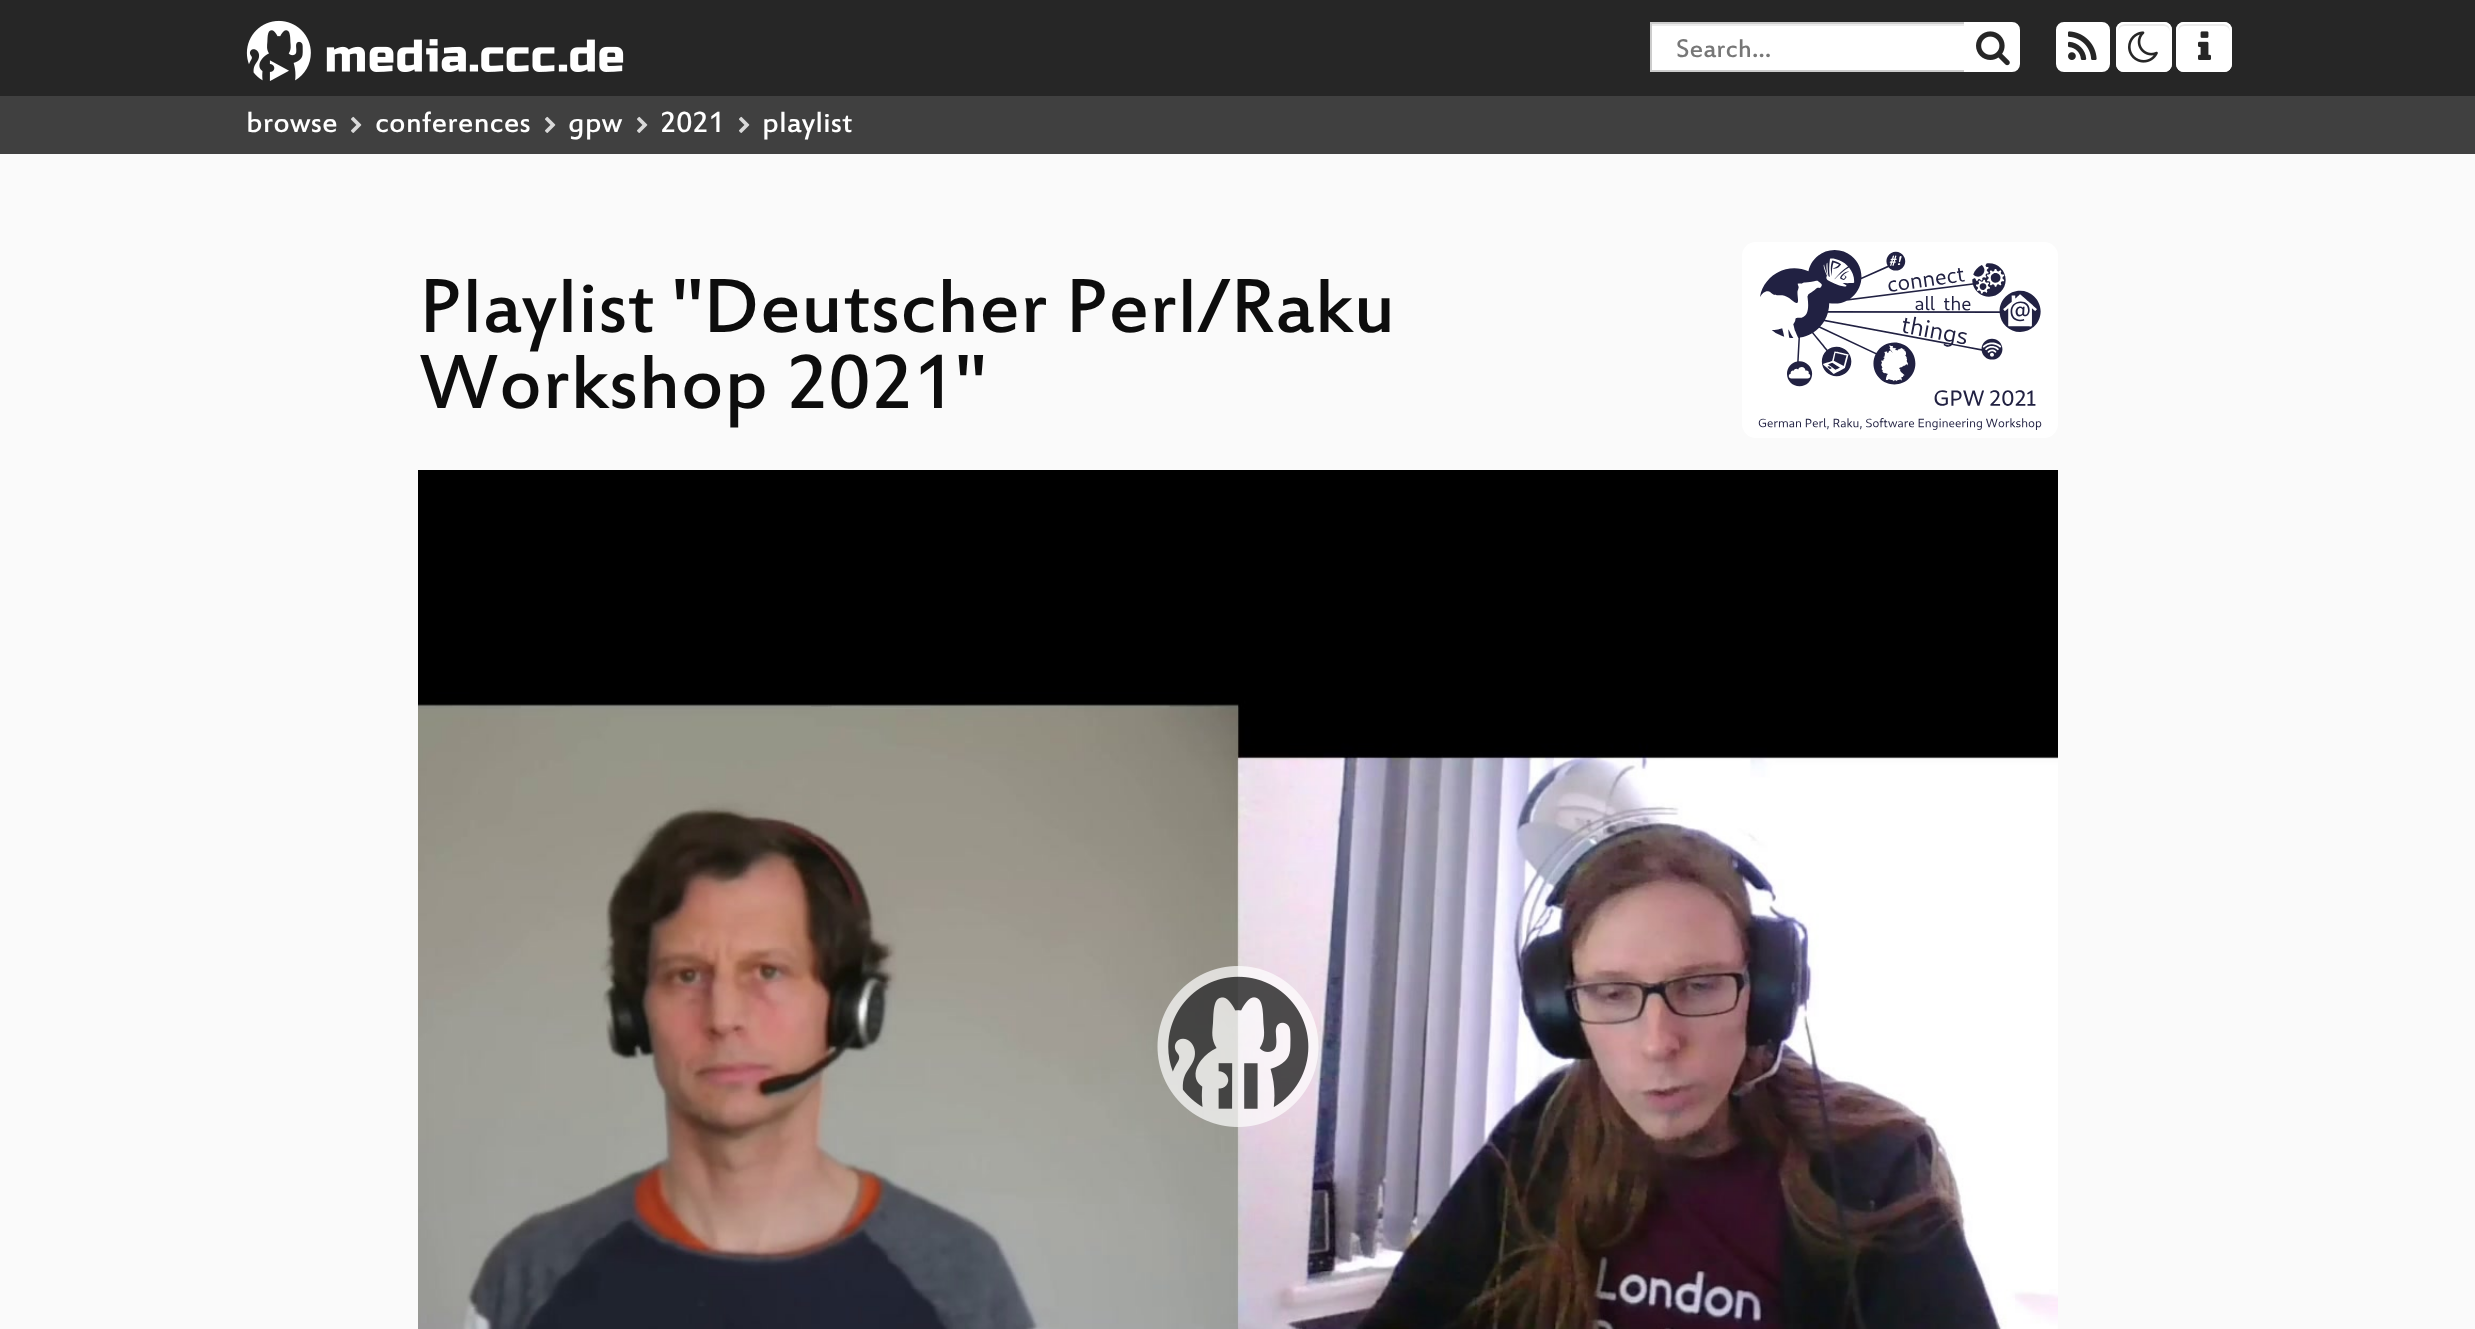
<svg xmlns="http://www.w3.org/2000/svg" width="2475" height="1329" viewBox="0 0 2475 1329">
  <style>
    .t1 { font: 28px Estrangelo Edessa; fill: #777; }
    .t2 { font: 32px Estrangelo Edessa; fill: #fff; }
    .t3 { font: 84px Estrangelo Edessa; fill: #0d0d0d; }
  </style>
  <rect width="100%" height="100%" fill="#fafafa"/>
  <rect x="0" y="0" width="2475" height="96" fill="#262626"/>
  <image x="246" y="20" width="378" height="61" href="images/1.png"/>
  <rect x="1652" y="26" width="312" height="44" fill="#fff"/>
  <rect x="1652" y="24" width="312" height="2" fill="#ececec"/>
  <rect x="1651" y="23" width="314" height="48" fill="none" stroke="#ccc" stroke-width="2"/>
  <text x="1676" y="57" class="t1">Search…</text>
  <path d="M1965 23H2012C2016 23 2019 26 2019 30V64C2019 68 2016 71 2012 71H1965Z" fill="#fff" stroke="#fff" stroke-width="2"/>
  <image x="1976" y="31" width="34" height="35" href="images/2.png"/>
  <rect x="2057" y="23" width="52" height="48" rx="7" fill="#fff" stroke="#fff" stroke-width="2"/>
  <image x="2068" y="31" width="29" height="29" href="images/3.png"/>
  <rect x="2116" y="22" width="56" height="50" rx="8" fill="#fff"/>
  <path d="M2124 26H2164C2167 26 2170 29 2170 32C2170 23 2165 24 2157 24H2131C2123 24 2118 23 2118 32C2118 29 2121 26 2124 26Z" fill="#ececec"/>
  <rect x="2117" y="23" width="54" height="48" rx="7" fill="none" stroke="#fff" stroke-width="2"/>
  <image x="2128" y="31" width="30" height="32" href="images/4.png"/>
  <rect x="2176" y="22" width="56" height="50" rx="8" fill="#fff"/>
  <path d="M2184 26H2224C2227 26 2230 29 2230 32C2230 23 2225 24 2217 24H2191C2183 24 2178 23 2178 32C2178 29 2181 26 2184 26Z" fill="#ececec"/>
  <rect x="2177" y="23" width="54" height="48" rx="7" fill="none" stroke="#fff" stroke-width="2"/>
  <image x="2198" y="31" width="13" height="29" href="images/5.png"/>
  <rect x="0" y="96" width="2475" height="58" fill="#404040"/>
  <text x="246" y="132" class="t2">browse</text>
  <image x="351" y="116" width="11" height="17" href="images/6.png"/>
  <text x="375" y="132" class="t2">conferences</text>
  <image x="545" y="116" width="11" height="17" href="images/6.png"/>
  <text x="568" y="132" class="t2">gpw</text>
  <image x="637" y="116" width="11" height="17" href="images/6.png"/>
  <text x="660" y="132" class="t2">2021</text>
  <image x="739" y="116" width="11" height="17" href="images/6.png"/>
  <text x="762" y="132" class="t2">playlist</text>
  <text x="419" y="332" class="t3">Playlist "Deutscher Perl/Raku</text>
  <text x="419" y="408" class="t3">Workshop 2021"</text>
  <rect x="1742" y="242" width="316" height="196" rx="14" fill="#fff"/>
  <image x="1758" y="250" width="284" height="180" href="images/7.png"/>
  <rect x="418" y="470" width="1640" height="129" fill="#000"/>
  <image x="418" y="599" width="1640" height="730" href="images/8.png"/>
  <image x="1157" y="966" width="162" height="161" href="images/9.png"/>
</svg>
